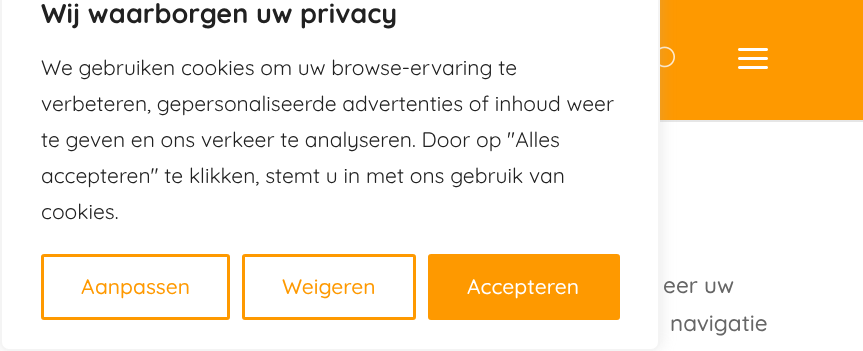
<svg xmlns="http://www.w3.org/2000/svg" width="863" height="351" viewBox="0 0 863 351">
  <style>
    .t1 { font: bold 27px Quicksand; fill: #212121; }
    .t2 { font: 21px Quicksand; fill: #212121; }
    .t3 { font: 500 21px Quicksand; fill: #fe9900; }
    .t4 { font: 500 21px Quicksand; fill: #fff; }
    .t5 { font: 500 22.5px Quicksand; fill: #666; }
  </style>
  <rect width="100%" height="100%" fill="#fff"/>
  <rect x="660" y="120" width="203" height="2" fill="#e6e6e6"/>
  <rect x="660" y="0" width="203" height="120" fill="#fe9900"/>
  <image x="660" y="46" width="15" height="22" href="images/1.png"/>
  <rect x="0" y="-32" width="660" height="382" rx="9" fill="#acabab4d" filter="blur(7.5px)"/>
  <rect x="1" y="-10" width="658" height="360" rx="8" fill="#fff" stroke="#f4f4f4" stroke-width="2"/>
  <text x="41" y="23" class="t1">Wij waarborgen uw privacy</text>
  <text x="41" y="75" class="t2">We gebruiken cookies om uw browse-ervaring te</text>
  <text x="41" y="111" class="t2">verbeteren, gepersonaliseerde advertenties of inhoud weer</text>
  <text x="41" y="147" class="t2">te geven en ons verkeer te analyseren. Door op "Alles</text>
  <text x="41" y="183" class="t2">accepteren" te klikken, stemt u in met ons gebruik van</text>
  <text x="41" y="219" class="t2">cookies.</text>
  <rect x="42.5" y="255.5" width="186" height="63" rx="1.5" fill="none" stroke="#fe9900" stroke-width="3"/>
  <text x="81" y="294" class="t3">Aanpassen</text>
  <rect x="243.5" y="255.5" width="171" height="63" rx="1.5" fill="none" stroke="#fe9900" stroke-width="3"/>
  <text x="282" y="294" class="t3">Weigeren</text>
  <rect x="429.5" y="255.5" width="189" height="63" rx="1.5" fill="#fe9900" stroke="#fe9900" stroke-width="3"/>
  <text x="467" y="294" class="t4">Accepteren</text>
  <image x="738" y="48" width="30" height="21" href="images/2.png"/>
  <text x="663" y="293" class="t5">eer uw</text>
  <text x="670" y="331" class="t5">navigatie</text>
</svg>
